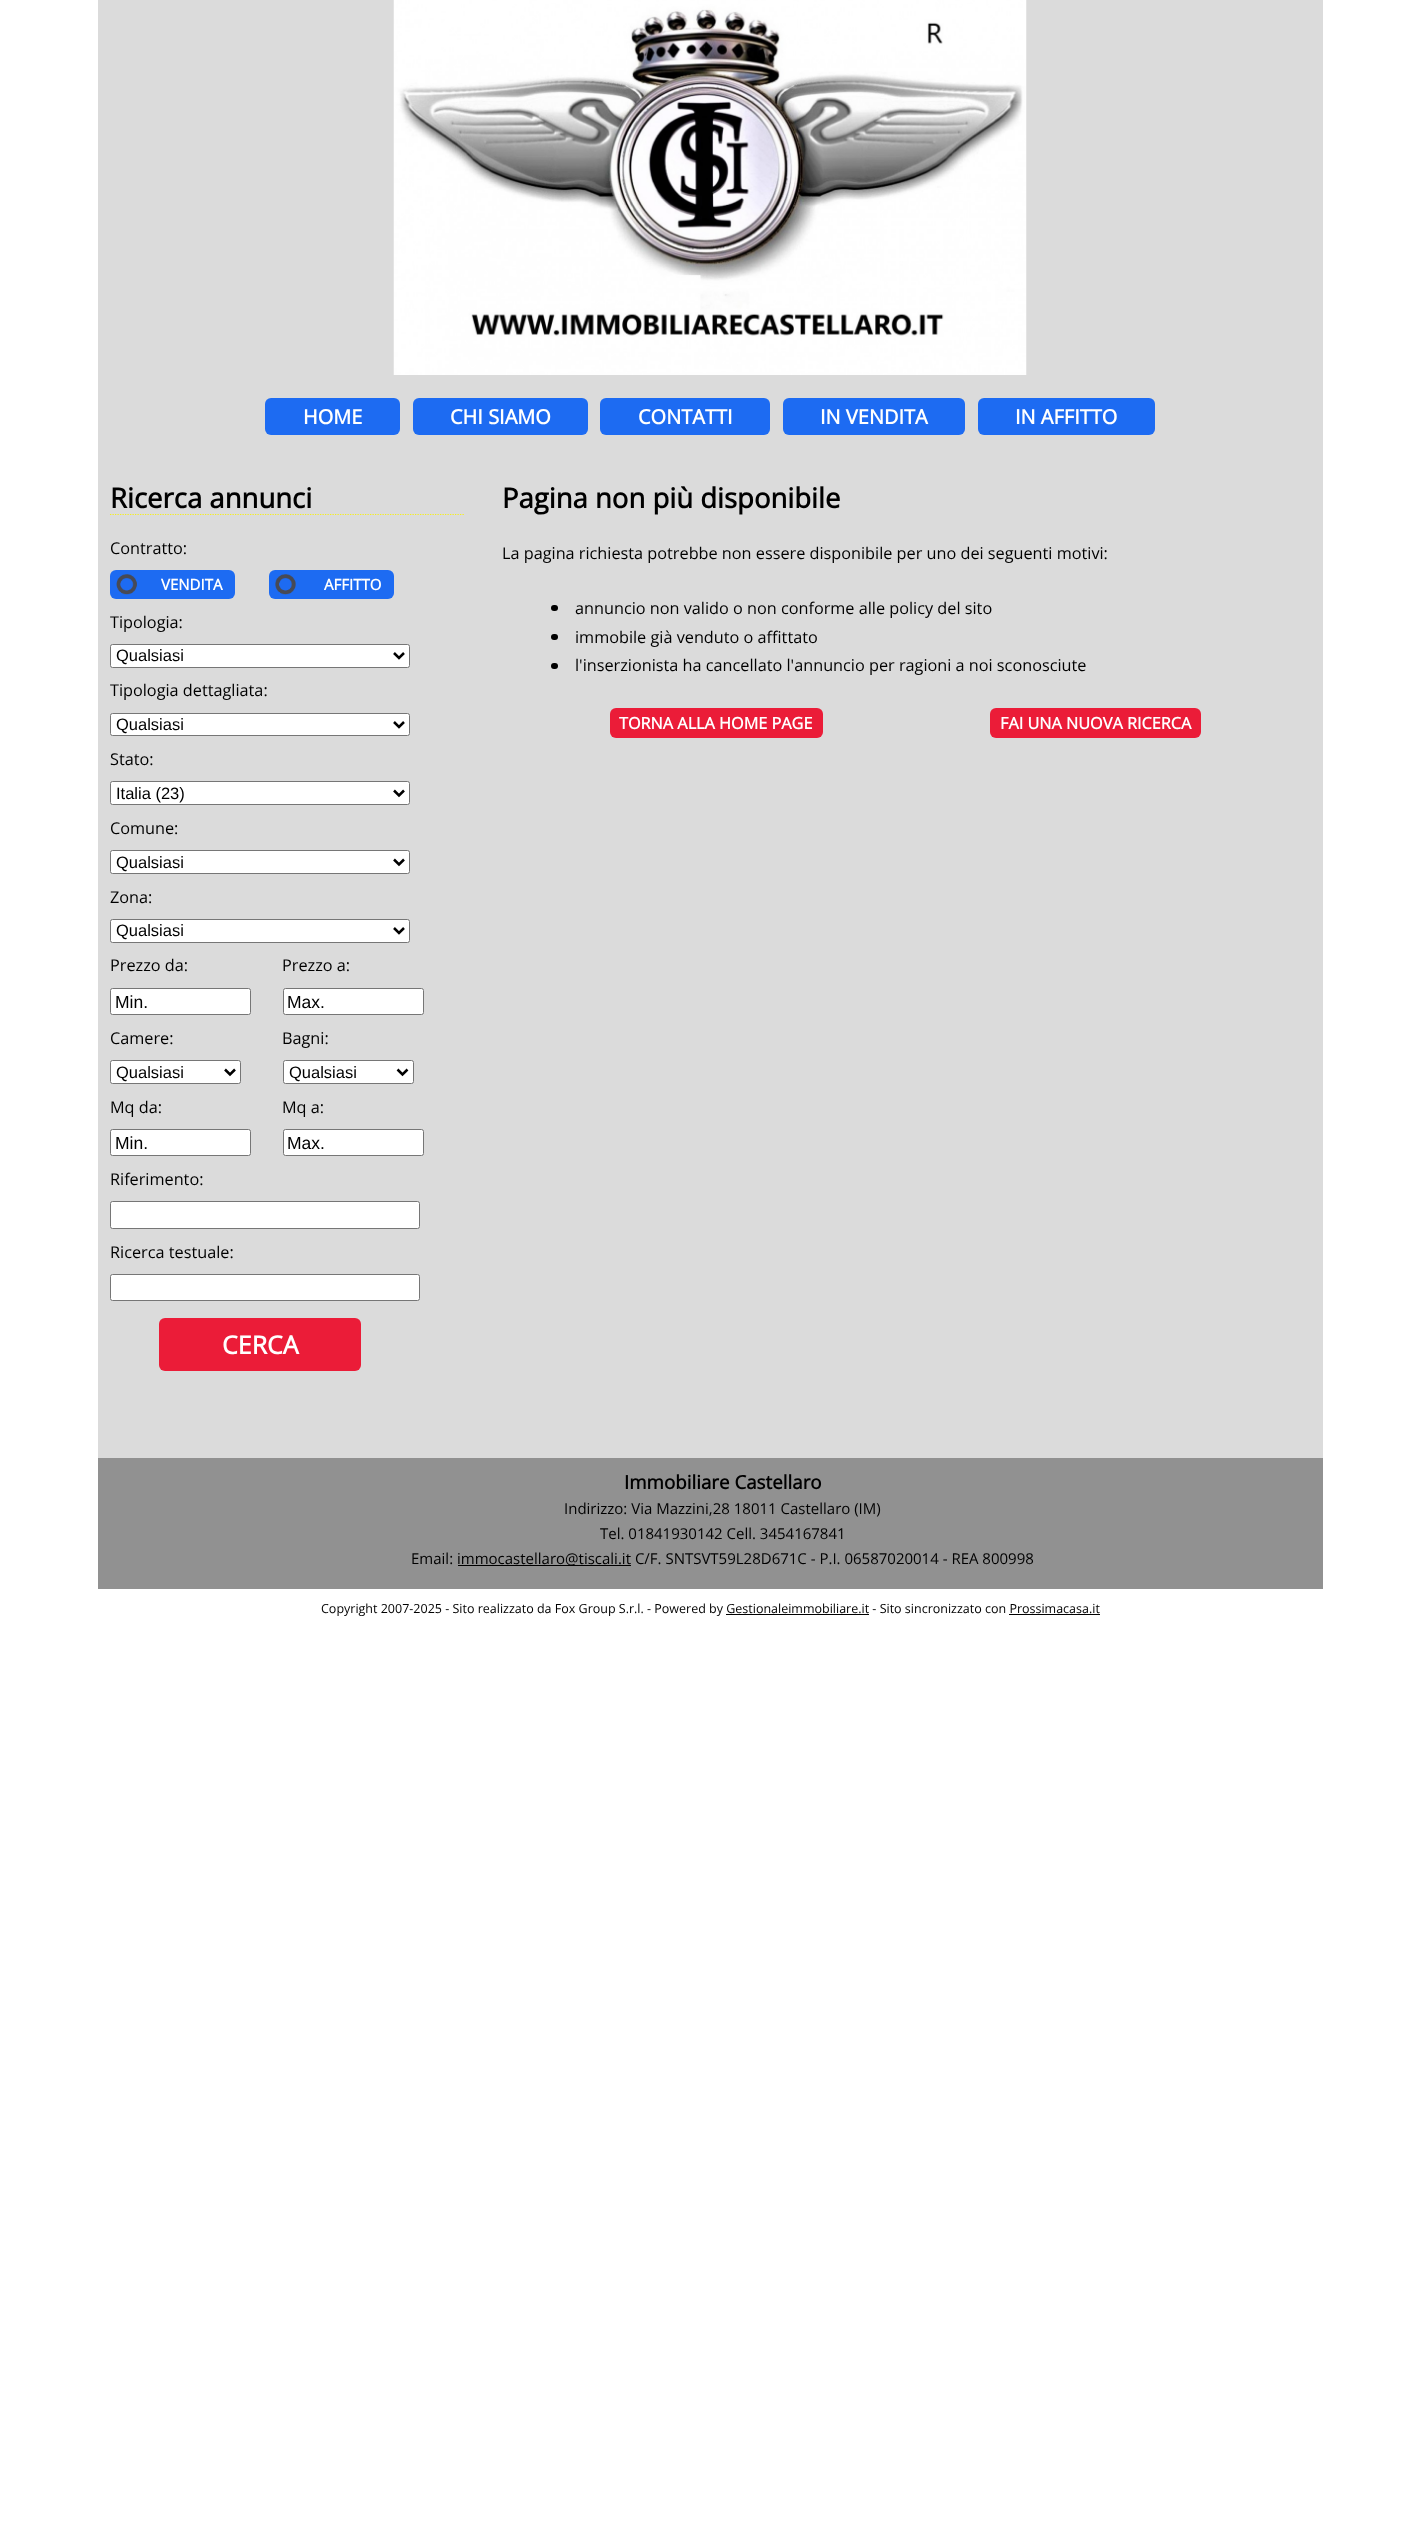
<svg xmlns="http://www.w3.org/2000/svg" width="1420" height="2541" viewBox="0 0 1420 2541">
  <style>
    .t1 { font: bold 20px Open Sans; fill: #fff; }
    .t2 { font: bold 27.5px Open Sans; fill: #000; }
    .t3 { font: 16.25px Open Sans; fill: #000; }
    .t4 { font: bold 15px Open Sans; fill: #fff; }
    .t5 { font: 16.5px Liberation Sans; fill: #000; }
    .t6 { font: 17.5px Liberation Sans; fill: #000; }
    .t7 { font: bold 25px Open Sans; fill: #fff; }
    .t8 { font: bold 16.25px Open Sans; fill: #fff; }
    .t9 { font: bold 18.75px Open Sans; fill: #000; }
    .t10 { font: 15px Open Sans; fill: #000; }
    .t11 { font: 12.5px Open Sans; fill: #000; }
  </style>
  <rect width="100%" height="100%" fill="#fff"/>
  <rect x="98" y="0" width="1225" height="1458" fill="#dbdbdb"/>
  <image x="393" y="0" width="634" height="375" href="images/1.png"/>
  <rect x="265" y="398" width="135" height="37" rx="6" fill="#1d6bf2"/>
  <text x="303" y="424" class="t1">HOME</text>
  <rect x="413" y="398" width="175" height="37" rx="6" fill="#1d6bf2"/>
  <text x="450" y="424" class="t1">CHI SIAMO</text>
  <rect x="600" y="398" width="170" height="37" rx="6" fill="#1d6bf2"/>
  <text x="638" y="424" class="t1">CONTATTI</text>
  <rect x="783" y="398" width="182" height="37" rx="6" fill="#1d6bf2"/>
  <text x="820" y="424" class="t1">IN VENDITA</text>
  <rect x="978" y="398" width="177" height="37" rx="6" fill="#1d6bf2"/>
  <text x="1015" y="424" class="t1">IN AFFITTO</text>
  <path d="M110 514.5H465" fill="none" stroke="#f7f019" stroke-width="1.2" stroke-dasharray="1.25 1.25"/>
  <text x="110" y="508" class="t2">Ricerca annunci</text>
  <text x="110" y="554" class="t3">Contratto:</text>
  <rect x="110" y="570" width="125" height="29" rx="6" fill="#1d6bf2"/>
  <image x="116" y="574" width="21" height="21" href="images/2.png"/>
  <text x="161" y="590" class="t4">VENDITA</text>
  <rect x="269" y="570" width="125" height="29" rx="6" fill="#1d6bf2"/>
  <image x="275" y="574" width="21" height="21" href="images/3.png"/>
  <text x="324" y="590" class="t4">AFFITTO</text>
  <text x="110" y="628" class="t3">Tipologia:</text>
  <rect x="110.5" y="644.5" width="299" height="23" rx="2" fill="#fff" stroke="#767676"/>
  <path d="M394 653L399 658L404 653" fill="none" stroke="#000" stroke-width="2.5"/>
  <text x="116" y="661" class="t5">Qualsiasi</text>
  <text x="110" y="696" class="t3">Tipologia dettagliata:</text>
  <rect x="110.5" y="713.5" width="299" height="22" rx="2" fill="#fff" stroke="#767676"/>
  <path d="M394 722L399 727L404 722" fill="none" stroke="#000" stroke-width="2.5"/>
  <text x="116" y="730" class="t5">Qualsiasi</text>
  <text x="110" y="765" class="t3">Stato:</text>
  <rect x="110.5" y="781.5" width="299" height="23" rx="2" fill="#fff" stroke="#767676"/>
  <path d="M394 790.5L399 795.5L404 790.5" fill="none" stroke="#000" stroke-width="2.5"/>
  <text x="116" y="799" class="t5">Italia (23)</text>
  <text x="110" y="834" class="t3">Comune:</text>
  <rect x="110.5" y="850.5" width="299" height="23" rx="2" fill="#fff" stroke="#767676"/>
  <path d="M394 859.5L399 864.5L404 859.5" fill="none" stroke="#000" stroke-width="2.5"/>
  <text x="116" y="868" class="t5">Qualsiasi</text>
  <text x="110" y="903" class="t3">Zona:</text>
  <rect x="110.5" y="919.5" width="299" height="23" rx="2" fill="#fff" stroke="#767676"/>
  <path d="M394 928L399 933L404 928" fill="none" stroke="#000" stroke-width="2.5"/>
  <text x="116" y="936" class="t5">Qualsiasi</text>
  <text x="110" y="971" class="t3">Prezzo da:</text>
  <rect x="110.5" y="988.5" width="140" height="26" rx="2" fill="#fff" stroke="#767676"/>
  <text x="115" y="1008" class="t6">Min.</text>
  <text x="282" y="971" class="t3">Prezzo a:</text>
  <rect x="283.5" y="988.5" width="140" height="26" rx="2" fill="#fff" stroke="#767676"/>
  <text x="287" y="1008" class="t6">Max.</text>
  <text x="110" y="1044" class="t3">Camere:</text>
  <rect x="110.5" y="1060.5" width="130" height="23" rx="2" fill="#fff" stroke="#767676"/>
  <path d="M225 1069.5L230 1074.5L235 1069.5" fill="none" stroke="#000" stroke-width="2.5"/>
  <text x="116" y="1078" class="t5">Qualsiasi</text>
  <text x="282" y="1044" class="t3">Bagni:</text>
  <rect x="283.5" y="1060.5" width="130" height="23" rx="2" fill="#fff" stroke="#767676"/>
  <path d="M397.5 1069.5L402.5 1074.5L407.5 1069.5" fill="none" stroke="#000" stroke-width="2.5"/>
  <text x="289" y="1078" class="t5">Qualsiasi</text>
  <text x="110" y="1113" class="t3">Mq da:</text>
  <rect x="110.5" y="1129.5" width="140" height="26" rx="2" fill="#fff" stroke="#767676"/>
  <text x="115" y="1149" class="t6">Min.</text>
  <text x="282" y="1113" class="t3">Mq a:</text>
  <rect x="283.5" y="1129.5" width="140" height="26" rx="2" fill="#fff" stroke="#767676"/>
  <text x="287" y="1149" class="t6">Max.</text>
  <text x="110" y="1185" class="t3">Riferimento:</text>
  <rect x="110.5" y="1201.5" width="309" height="27" rx="2" fill="#fff" stroke="#767676"/>
  <text x="110" y="1258" class="t3">Ricerca testuale:</text>
  <rect x="110.5" y="1274.5" width="309" height="26" rx="2" fill="#fff" stroke="#767676"/>
  <rect x="159" y="1318" width="202" height="53" rx="6" fill="#eb1c38"/>
  <text x="222" y="1354" class="t7">CERCA</text>
  <text x="502" y="508" class="t2">Pagina non più disponibile</text>
  <text x="502" y="559" class="t3">La pagina richiesta potrebbe non essere disponibile per uno dei seguenti motivi:</text>
  <rect x="551" y="605" width="7" height="6" rx="3" fill="#000"/>
  <text x="575" y="614" class="t3">annuncio non valido o non conforme alle policy del sito</text>
  <rect x="551" y="634" width="7" height="6" rx="3" fill="#000"/>
  <text x="575" y="643" class="t3">immobile già venduto o affittato</text>
  <rect x="551" y="663" width="7" height="6" rx="3" fill="#000"/>
  <text x="575" y="671" class="t3">l'inserzionista ha cancellato l'annuncio per ragioni a noi sconosciute</text>
  <rect x="610" y="708" width="213" height="30" rx="6" fill="#eb1c38"/>
  <text x="619" y="729" class="t8">TORNA ALLA HOME PAGE</text>
  <rect x="990" y="708" width="211" height="30" rx="6" fill="#eb1c38"/>
  <text x="1000" y="729" class="t8">FAI UNA NUOVA RICERCA</text>
  <rect x="98" y="1458" width="1225" height="131" fill="#919191"/>
  <text x="624" y="1489" class="t9">Immobiliare Castellaro</text>
  <text x="564" y="1514" class="t10">Indirizzo: Via Mazzini,28 18011 Castellaro (IM)</text>
  <text x="600" y="1539" class="t10">Tel. 01841930142 Cell. 3454167841</text>
  <text x="411" y="1564" class="t10">Email:</text>
  <rect x="458" y="1565" width="173" height="1" fill="#000"/>
  <text x="457" y="1564" class="t10">immocastellaro@tiscali.it C/F. SNTSVT59L28D671C - P.I. 06587020014 - REA 800998</text>
  <text x="321" y="1613" class="t11">Copyright 2007-2025 - Sito realizzato da Fox Group S.r.l. - Powered by Gestionaleimmobiliare.it - Sito sincronizzato con Prossimacasa.it</text>
  <rect x="726" y="1614" width="143" height="1" fill="#000"/>
  <rect x="1009" y="1614" width="91" height="1" fill="#000"/>
</svg>
